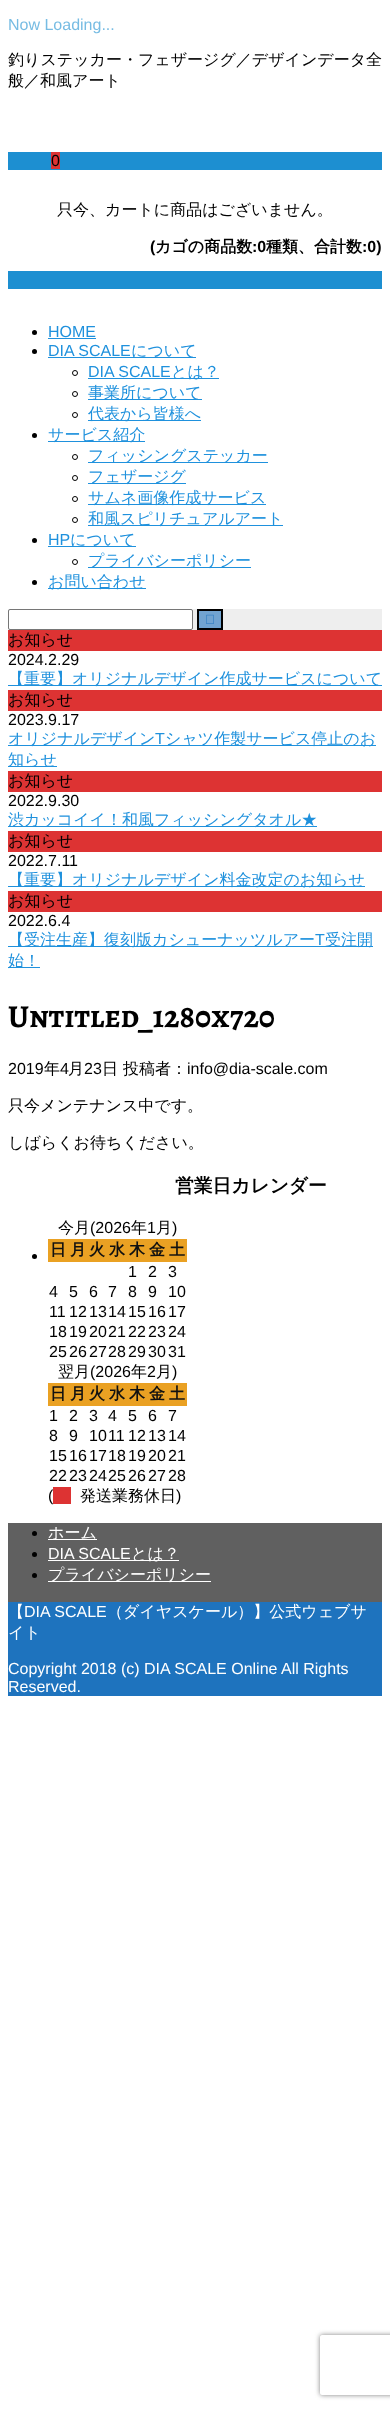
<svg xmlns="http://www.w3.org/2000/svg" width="390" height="2409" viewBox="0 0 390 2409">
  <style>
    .t1 { font: 16px Liberation Sans; fill: #77bce3; }
    .t2 { font: 500 16px WenQuanYi Zen Hei; fill: #000; }
    .t3 { font: 16px Liberation Sans; fill: #000; }
    .t4 { font: bold 16px Liberation Sans; fill: #000; }
    .t5 { font: bold 16px WenQuanYi Zen Hei; fill: #000; }
    .t6 { font: 16px Liberation Sans; fill: #1f91dd; }
    .t7 { font: 500 16px WenQuanYi Zen Hei; fill: #1f91dd; }
    .t8 { font: bold 32px Alegreya SC; fill: #000; }
    .t9 { font: bold 18.75px WenQuanYi Zen Hei; fill: #000; }
    .t10 { font: bold 16px WenQuanYi Zen Hei; fill: #111; }
    .t11 { font: 500 16px WenQuanYi Zen Hei; fill: #fff; }
    .t12 { font: 16px Liberation Sans; fill: #fff; }
  </style>
  <defs>
    <clipPath id="clip1"><path d="M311 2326H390V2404H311ZM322 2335H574C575 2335 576 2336 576 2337V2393C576 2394 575 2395 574 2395H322C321 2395 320 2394 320 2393V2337C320 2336 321 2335 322 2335Z" clip-rule="evenodd"/></clipPath>
  </defs>
  <rect width="100%" height="100%" fill="#fff"/>
  <text x="8" y="30" class="t1">Now Loading...</text>
  <text x="8" y="65" class="t2">釣りステッカー・フェザージグ／デザインデータ全</text>
  <text x="8" y="86" class="t2">般／和風アート</text>
  <rect x="8" y="152" width="374" height="18" fill="#1d8fd1"/>
  <rect x="51" y="152" width="9" height="17" fill="#d33"/>
  <text x="51" y="166" class="t3">0</text>
  <text x="57" y="215" class="t2">只今、カートに商品はございません。</text>
  <text x="150" y="252" class="t4">(</text>
  <text x="155" y="252" class="t5">カゴの商品数</text>
  <text x="252" y="252" class="t4">:0</text>
  <text x="266" y="252" class="t5">種類、合計数</text>
  <text x="362" y="252" class="t4">:0)</text>
  <rect x="8" y="271" width="374" height="18" fill="#1d8fd1"/>
  <circle cx="34.5" cy="332.5" r="2.5" fill="#000"/>
  <text x="48" y="337" class="t6">HOME</text>
  <rect x="48" y="338" width="48" height="1" fill="#1f91dd"/>
  <circle cx="34.5" cy="351.5" r="2.5" fill="#000"/>
  <text x="48" y="356" class="t6">DIA SCALE</text>
  <rect x="48" y="357" width="148" height="1" fill="#1f91dd"/>
  <text x="131" y="356" class="t7">について</text>
  <circle cx="75" cy="373" r="2.5" fill="none" stroke="#000"/>
  <text x="88" y="377" class="t6">DIA SCALE</text>
  <rect x="88" y="378" width="131" height="1" fill="#1f91dd"/>
  <text x="171" y="377" class="t7">とは？</text>
  <circle cx="75" cy="394" r="2.5" fill="none" stroke="#000"/>
  <rect x="88" y="399" width="114" height="1" fill="#1f91dd"/>
  <text x="88" y="398" class="t7">事業所について</text>
  <circle cx="75" cy="415" r="2.5" fill="none" stroke="#000"/>
  <rect x="88" y="420" width="113" height="1" fill="#1f91dd"/>
  <text x="88" y="419" class="t7">代表から皆様へ</text>
  <circle cx="34.5" cy="435.5" r="2.5" fill="#000"/>
  <rect x="48" y="441" width="97" height="1" fill="#1f91dd"/>
  <text x="48" y="440" class="t7">サービス紹介</text>
  <circle cx="75" cy="457" r="2.5" fill="none" stroke="#000"/>
  <rect x="88" y="462" width="180" height="1" fill="#1f91dd"/>
  <text x="88" y="461" class="t7">フィッシングステッカー</text>
  <circle cx="75" cy="478" r="2.5" fill="none" stroke="#000"/>
  <rect x="88" y="483" width="98" height="1" fill="#1f91dd"/>
  <text x="88" y="482" class="t7">フェザージグ</text>
  <circle cx="75" cy="499" r="2.5" fill="none" stroke="#000"/>
  <rect x="88" y="504" width="178" height="1" fill="#1f91dd"/>
  <text x="88" y="503" class="t7">サムネ画像作成サービス</text>
  <circle cx="75" cy="520" r="2.5" fill="none" stroke="#000"/>
  <rect x="88" y="525" width="195" height="1" fill="#1f91dd"/>
  <text x="88" y="524" class="t7">和風スピリチュアルアート</text>
  <circle cx="34.5" cy="540.5" r="2.5" fill="#000"/>
  <text x="48" y="545" class="t6">HP</text>
  <rect x="48" y="546" width="88" height="1" fill="#1f91dd"/>
  <text x="70" y="545" class="t7">について</text>
  <circle cx="75" cy="562" r="2.5" fill="none" stroke="#000"/>
  <rect x="88" y="567" width="163" height="1" fill="#1f91dd"/>
  <text x="88" y="566" class="t7">プライバシーポリシー</text>
  <circle cx="34.5" cy="582.5" r="2.5" fill="#000"/>
  <rect x="48" y="588" width="98" height="1" fill="#1f91dd"/>
  <text x="48" y="587" class="t7">お問い合わせ</text>
  <rect x="8" y="609" width="374" height="21" fill="#eee"/>
  <rect x="8.5" y="609.5" width="184" height="20" rx="1.5" fill="#fff" stroke="#767676"/>
  <rect x="198" y="610" width="24" height="19" fill="#71a4d1" stroke="#000" stroke-width="2"/>
  <image x="206" y="614" width="8" height="10" href="images/1.png"/>
  <rect x="8" y="630" width="374" height="21" fill="#d33"/>
  <text x="8" y="645" class="t2">お知らせ</text>
  <text x="8" y="665" class="t3">2024.2.29</text>
  <rect x="8" y="685" width="374" height="1" fill="#1f91dd"/>
  <text x="8" y="684" class="t7">【重要】オリジナルデザイン作成サービスについて</text>
  <rect x="8" y="690" width="374" height="21" fill="#d33"/>
  <text x="8" y="705" class="t2">お知らせ</text>
  <text x="8" y="725" class="t3">2023.9.17</text>
  <rect x="8" y="745" width="368" height="1" fill="#1f91dd"/>
  <text x="8" y="744" class="t7">オリジナルデザイン</text>
  <text x="155" y="744" class="t6">T</text>
  <text x="165" y="744" class="t7">シャツ作製サービス停止のお</text>
  <rect x="8" y="766" width="49" height="1" fill="#1f91dd"/>
  <text x="8" y="765" class="t7">知らせ</text>
  <rect x="8" y="771" width="374" height="21" fill="#d33"/>
  <text x="8" y="786" class="t2">お知らせ</text>
  <text x="8" y="806" class="t3">2022.9.30</text>
  <rect x="8" y="826" width="309" height="1" fill="#1f91dd"/>
  <text x="8" y="825" class="t7">渋カッコイイ！和風フィッシングタオル★</text>
  <rect x="8" y="831" width="374" height="21" fill="#d33"/>
  <text x="8" y="846" class="t2">お知らせ</text>
  <text x="8" y="866" class="t3">2022.7.11</text>
  <rect x="8" y="886" width="357" height="1" fill="#1f91dd"/>
  <text x="8" y="885" class="t7">【重要】オリジナルデザイン料金改定のお知らせ</text>
  <rect x="8" y="891" width="374" height="21" fill="#d33"/>
  <text x="8" y="906" class="t2">お知らせ</text>
  <text x="8" y="926" class="t3">2022.6.4</text>
  <rect x="8" y="946" width="365" height="1" fill="#1f91dd"/>
  <text x="8" y="945" class="t7">【受注生産】復刻版カシューナッツルアー</text>
  <text x="315" y="945" class="t6">T</text>
  <text x="325" y="945" class="t7">受注開</text>
  <rect x="8" y="967" width="32" height="1" fill="#1f91dd"/>
  <text x="8" y="966" class="t7">始！</text>
  <text x="8" y="1027" class="t8">Untitled_1280x720</text>
  <text x="8" y="1074" class="t3">2019</text>
  <text x="44" y="1074" class="t2">年</text>
  <text x="60" y="1074" class="t3">4</text>
  <text x="68" y="1074" class="t2">月</text>
  <text x="84" y="1074" class="t3">23</text>
  <text x="102" y="1074" class="t2">日</text>
  <text x="123" y="1074" class="t2">投稿者：</text>
  <text x="187" y="1074" class="t3">info@dia-scale.com</text>
  <text x="8" y="1111" class="t2">只今メンテナンス中です。</text>
  <text x="8" y="1148" class="t2">しばらくお待ちください。</text>
  <text x="175" y="1192" class="t9">営業日カレンダー</text>
  <circle cx="34.5" cy="1256.5" r="2.5" fill="#000"/>
  <text x="58" y="1233" class="t2">今月</text>
  <text x="90" y="1233" class="t3">(2026</text>
  <text x="131" y="1233" class="t2">年</text>
  <text x="147" y="1233" class="t3">1</text>
  <text x="156" y="1233" class="t2">月</text>
  <text x="172" y="1233" class="t3">)</text>
  <rect x="48" y="1239" width="139" height="23" fill="#eaa123"/>
  <text x="50" y="1255" class="t10">日</text>
  <text x="70" y="1255" class="t10">月</text>
  <text x="89" y="1255" class="t10">火</text>
  <text x="109" y="1255" class="t10">水</text>
  <text x="129" y="1255" class="t10">木</text>
  <text x="149" y="1255" class="t10">金</text>
  <text x="169" y="1255" class="t10">土</text>
  <text x="128" y="1277" class="t3">1</text>
  <text x="148" y="1277" class="t3">2</text>
  <text x="168" y="1277" class="t3">3</text>
  <text x="49" y="1297" class="t3">4</text>
  <text x="69" y="1297" class="t3">5</text>
  <text x="89" y="1297" class="t3">6</text>
  <text x="108" y="1297" class="t3">7</text>
  <text x="128" y="1297" class="t3">8</text>
  <text x="148" y="1297" class="t3">9</text>
  <text x="168" y="1297" class="t3">10</text>
  <text x="49" y="1317" class="t3">11</text>
  <text x="69" y="1317" class="t3">12</text>
  <text x="89" y="1317" class="t3">13</text>
  <text x="108" y="1317" class="t3">14</text>
  <text x="128" y="1317" class="t3">15</text>
  <text x="148" y="1317" class="t3">16</text>
  <text x="168" y="1317" class="t3">17</text>
  <text x="49" y="1337" class="t3">18</text>
  <text x="69" y="1337" class="t3">19</text>
  <text x="89" y="1337" class="t3">20</text>
  <text x="108" y="1337" class="t3">21</text>
  <text x="128" y="1337" class="t3">22</text>
  <text x="148" y="1337" class="t3">23</text>
  <text x="168" y="1337" class="t3">24</text>
  <text x="49" y="1357" class="t3">25</text>
  <text x="69" y="1357" class="t3">26</text>
  <text x="89" y="1357" class="t3">27</text>
  <text x="108" y="1357" class="t3">28</text>
  <text x="128" y="1357" class="t3">29</text>
  <text x="148" y="1357" class="t3">30</text>
  <text x="168" y="1357" class="t3">31</text>
  <text x="58" y="1377" class="t2">翌月</text>
  <text x="90" y="1377" class="t3">(2026</text>
  <text x="131" y="1377" class="t2">年</text>
  <text x="147" y="1377" class="t3">2</text>
  <text x="156" y="1377" class="t2">月</text>
  <text x="172" y="1377" class="t3">)</text>
  <rect x="48" y="1383" width="139" height="23" fill="#eaa123"/>
  <text x="50" y="1399" class="t10">日</text>
  <text x="70" y="1399" class="t10">月</text>
  <text x="89" y="1399" class="t10">火</text>
  <text x="109" y="1399" class="t10">水</text>
  <text x="129" y="1399" class="t10">木</text>
  <text x="149" y="1399" class="t10">金</text>
  <text x="169" y="1399" class="t10">土</text>
  <text x="49" y="1421" class="t3">1</text>
  <text x="69" y="1421" class="t3">2</text>
  <text x="89" y="1421" class="t3">3</text>
  <text x="108" y="1421" class="t3">4</text>
  <text x="128" y="1421" class="t3">5</text>
  <text x="148" y="1421" class="t3">6</text>
  <text x="168" y="1421" class="t3">7</text>
  <text x="49" y="1441" class="t3">8</text>
  <text x="69" y="1441" class="t3">9</text>
  <text x="89" y="1441" class="t3">10</text>
  <text x="108" y="1441" class="t3">11</text>
  <text x="128" y="1441" class="t3">12</text>
  <text x="148" y="1441" class="t3">13</text>
  <text x="168" y="1441" class="t3">14</text>
  <text x="49" y="1461" class="t3">15</text>
  <text x="69" y="1461" class="t3">16</text>
  <text x="89" y="1461" class="t3">17</text>
  <text x="108" y="1461" class="t3">18</text>
  <text x="128" y="1461" class="t3">19</text>
  <text x="148" y="1461" class="t3">20</text>
  <text x="168" y="1461" class="t3">21</text>
  <text x="49" y="1481" class="t3">22</text>
  <text x="69" y="1481" class="t3">23</text>
  <text x="89" y="1481" class="t3">24</text>
  <text x="108" y="1481" class="t3">25</text>
  <text x="128" y="1481" class="t3">26</text>
  <text x="148" y="1481" class="t3">27</text>
  <text x="168" y="1481" class="t3">28</text>
  <text x="48" y="1501" class="t3">(</text>
  <rect x="53" y="1487" width="18" height="17" fill="#d33"/>
  <text x="80" y="1501" class="t2">発送業務休日</text>
  <text x="176" y="1501" class="t3">)</text>
  <rect x="8" y="1523" width="374" height="79" fill="#606060"/>
  <circle cx="34.5" cy="1533.5" r="2.5" fill="#000"/>
  <rect x="48" y="1539" width="49" height="1" fill="#fff"/>
  <text x="48" y="1538" class="t11">ホーム</text>
  <circle cx="34.5" cy="1554.5" r="2.5" fill="#000"/>
  <text x="48" y="1559" class="t12">DIA SCALE</text>
  <rect x="48" y="1560" width="131" height="1" fill="#fff"/>
  <text x="131" y="1559" class="t11">とは？</text>
  <circle cx="34.5" cy="1575.5" r="2.5" fill="#000"/>
  <rect x="48" y="1581" width="163" height="1" fill="#fff"/>
  <text x="48" y="1580" class="t11">プライバシーポリシー</text>
  <rect x="8" y="1602" width="374" height="94" fill="#1e73be"/>
  <text x="8" y="1617" class="t11">【</text>
  <text x="24" y="1617" class="t12">DIA SCALE</text>
  <text x="107" y="1617" class="t11">（ダイヤスケール）】公式ウェブサ</text>
  <text x="8" y="1638" class="t11">イト</text>
  <text x="8" y="1674" class="t12">Copyright 2018 (c) DIA SCALE Online All Rights</text>
  <text x="8" y="1692" class="t12">Reserved.</text>
  <g clip-path="url(#clip1)">
    <rect x="320" y="2335" width="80" height="60" rx="2" fill="#808080" filter="blur(2.5px)"/>
  </g>
</svg>
